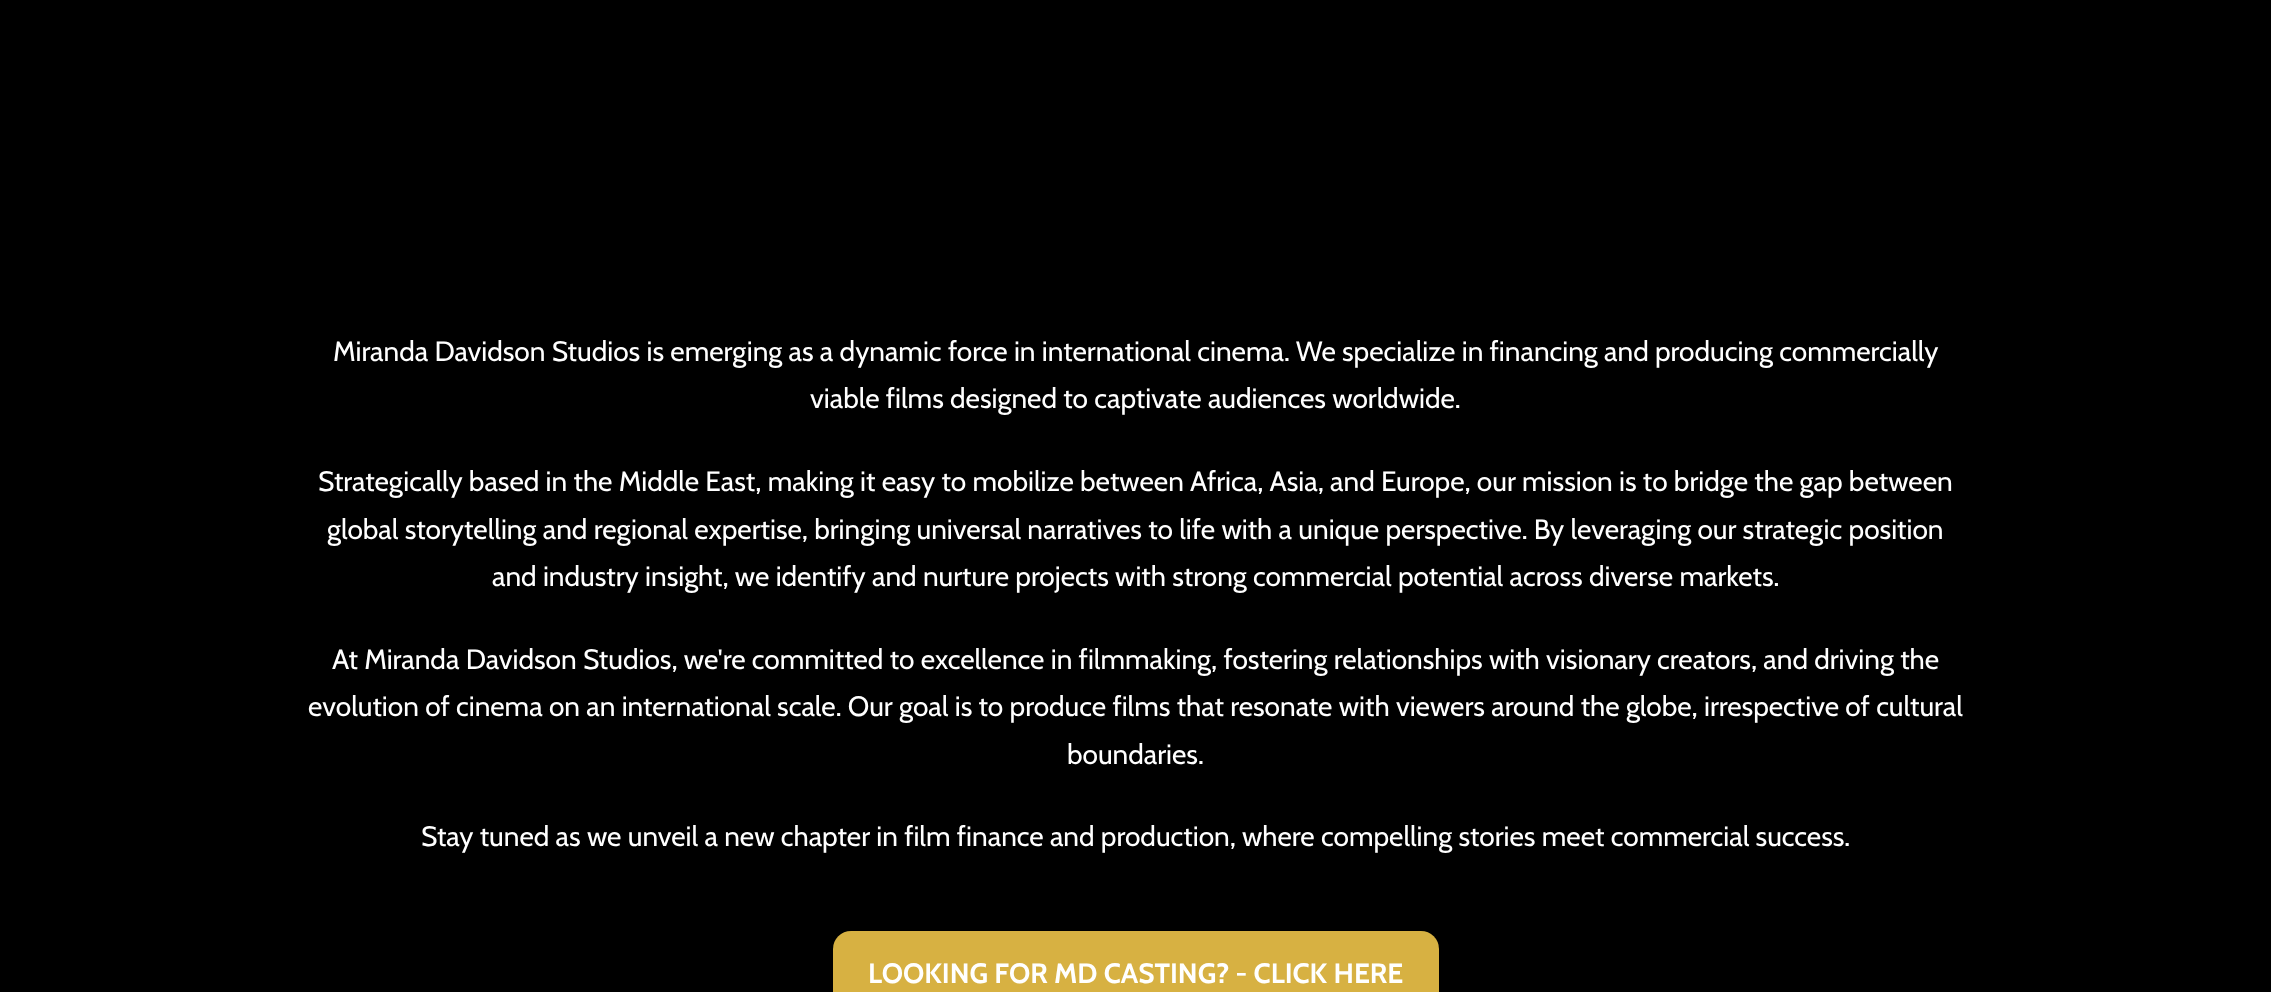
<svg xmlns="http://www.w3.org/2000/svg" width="2271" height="992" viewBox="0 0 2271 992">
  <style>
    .t1 { font: 28px Cabin; fill: #fff; }
    .t2 { font: bold 28px Cabin; fill: #fff; }
  </style>
  <rect width="100%" height="100%" fill="#000"/>
  <text x="333" y="361" class="t1">Miranda Davidson Studios is emerging as a dynamic force in international cinema. We specialize in financing and producing commercially</text>
  <text x="810" y="408" class="t1">viable films designed to captivate audiences worldwide.</text>
  <text x="318" y="491" class="t1">Strategically based in the Middle East, making it easy to mobilize between Africa, Asia, and Europe, our mission is to bridge the gap between</text>
  <text x="327" y="539" class="t1">global storytelling and regional expertise, bringing universal narratives to life with a unique perspective. By leveraging our strategic position</text>
  <text x="492" y="586" class="t1">and industry insight, we identify and nurture projects with strong commercial potential across diverse markets.</text>
  <text x="332" y="669" class="t1">At Miranda Davidson Studios, we're committed to excellence in filmmaking, fostering relationships with visionary creators, and driving the</text>
  <text x="308" y="716" class="t1">evolution of cinema on an international scale. Our goal is to produce films that resonate with viewers around the globe, irrespective of cultural</text>
  <text x="1067" y="764" class="t1">boundaries.</text>
  <text x="421" y="846" class="t1">Stay tuned as we unveil a new chapter in film finance and production, where compelling stories meet commercial success.</text>
  <rect x="833" y="931" width="606" height="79" rx="18" fill="#d7b142"/>
  <text x="868" y="983" class="t2">LOOKING FOR MD CASTING? - CLICK HERE</text>
</svg>
